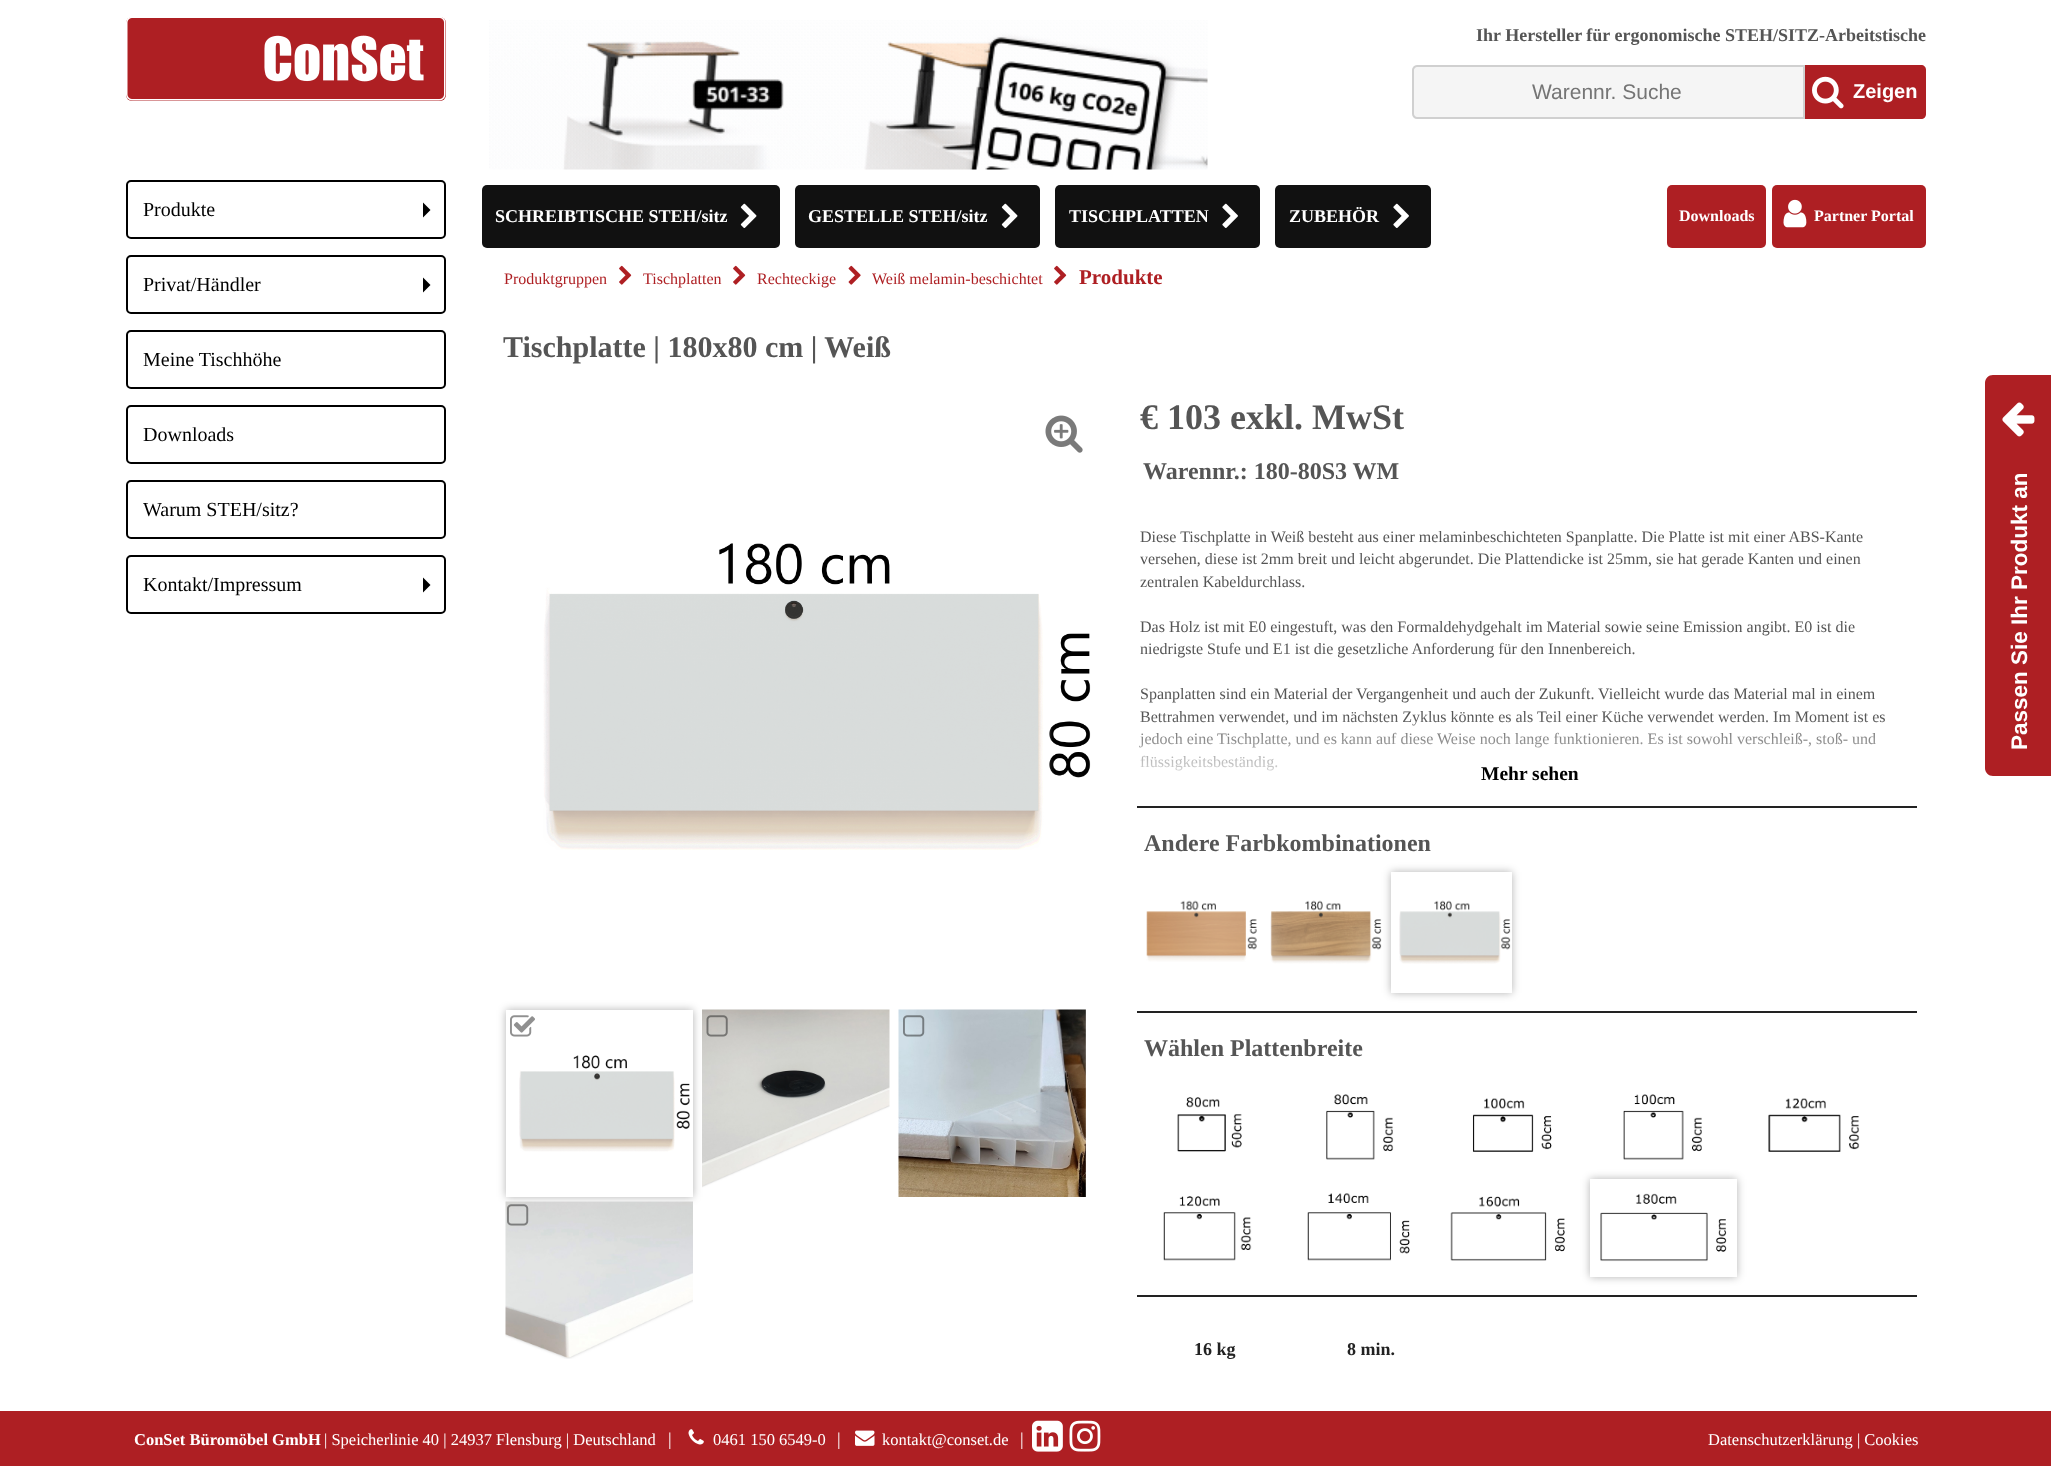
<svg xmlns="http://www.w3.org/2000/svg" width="2051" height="1466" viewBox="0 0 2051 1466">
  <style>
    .t1 { font: 20px Liberation Serif; fill: #000; }
    .t2 { font: bold 18px Liberation Serif; fill: #555; }
    .t3 { font: 21px Liberation Sans; fill: #757575; }
    .t4 { font: bold 20px Liberation Sans; fill: #fff; }
    .t5 { font: bold 18px Liberation Serif; fill: #fff; }
    .t6 { font: bold 16px Liberation Serif; fill: #fff; }
    .t7 { font: 16px Liberation Serif; fill: #ae1f23; }
    .t8 { font: bold 21px Liberation Serif; fill: #ae1f23; }
    .t9 { font: bold 30px Liberation Serif; fill: #555; }
    .t10 { font: bold 36px Liberation Serif; fill: #555; }
    .t11 { font: bold 24px Liberation Serif; fill: #555; }
    .t12 { font: 16px Liberation Serif; fill: #555; }
    .t13 { font: bold 19.5px Liberation Serif; fill: #000; }
    .t14 { font: bold 18px Liberation Serif; fill: #222; }
    .t15 { font: bold 22.5px Liberation Sans; fill: #fff; }
    .t16 { font: bold 16.5px Liberation Serif; fill: #fff; }
    .t17 { font: 16.5px Liberation Serif; fill: #fff; }
    .t18 { font: 18px Liberation Serif; fill: #fff; }
  </style>
  <defs>
    <clipPath id="clip1"><path d="M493 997H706V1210H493ZM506 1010H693V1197H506Z" clip-rule="evenodd"/></clipPath>
    <linearGradient id="g1" gradientUnits="userSpaceOnUse" x1="1530" y1="715" x2="1530" y2="791"><stop offset="0" stop-color="#fff" stop-opacity="0"/><stop offset="1" stop-color="#fff"/></linearGradient>
    <clipPath id="clip2"><path d="M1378 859H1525V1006H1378ZM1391 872H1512V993H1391Z" clip-rule="evenodd"/></clipPath>
    <clipPath id="clip3"><path d="M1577 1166H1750V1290H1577ZM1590 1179H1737V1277H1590Z" clip-rule="evenodd"/></clipPath>
  </defs>
  <rect width="100%" height="100%" fill="#fff"/>
  <rect x="126" y="17" width="320" height="84" rx="6" fill="#ae1f23"/>
  <image x="126" y="17" width="320" height="84" href="images/1.png"/>
  <rect x="127" y="181" width="318" height="57" rx="4" fill="none" stroke="#000" stroke-width="2"/>
  <text x="143" y="216" class="t1">Produkte</text>
  <path d="M423 217.5V202.5L430.5 210Z" fill="#000"/>
  <rect x="127" y="256" width="318" height="57" rx="4" fill="none" stroke="#000" stroke-width="2"/>
  <text x="143" y="291" class="t1">Privat/Händler</text>
  <path d="M423 292.5V277.5L430.5 285Z" fill="#000"/>
  <rect x="127" y="331" width="318" height="57" rx="4" fill="none" stroke="#000" stroke-width="2"/>
  <text x="143" y="366" class="t1">Meine Tischhöhe</text>
  <rect x="127" y="406" width="318" height="57" rx="4" fill="none" stroke="#000" stroke-width="2"/>
  <text x="143" y="441" class="t1">Downloads</text>
  <rect x="127" y="481" width="318" height="57" rx="4" fill="none" stroke="#000" stroke-width="2"/>
  <text x="143" y="516" class="t1">Warum STEH/sitz?</text>
  <rect x="127" y="556" width="318" height="57" rx="4" fill="none" stroke="#000" stroke-width="2"/>
  <text x="143" y="591" class="t1">Kontakt/Impressum</text>
  <path d="M423 592.5V577.5L430.5 585Z" fill="#000"/>
  <image x="489" y="20" width="719" height="150" href="images/2.png"/>
  <text x="1476" y="41" class="t2">Ihr Hersteller für ergonomische STEH/SITZ-Arbeitstische</text>
  <path d="M1417 65H1805V119H1417C1414 119 1412 117 1412 114V70C1412 67 1414 65 1417 65Z" fill="#f5f5f5"/>
  <path d="M1417 66H1804V118H1417C1415 118 1413 116 1413 114V70C1413 68 1415 66 1417 66Z" fill="none" stroke="#00000026" stroke-width="2"/>
  <text x="1532" y="99" class="t3">Warennr. Suche</text>
  <path d="M1805 65H1921C1924 65 1926 67 1926 70V114C1926 117 1924 119 1921 119H1805Z" fill="#ae1f23"/>
  <image x="1812" y="76" width="32" height="33" href="images/3.png"/>
  <text x="1853" y="98" class="t4">Zeigen</text>
  <rect x="482" y="185" width="298" height="63" rx="5" fill="#111"/>
  <text x="495" y="222" class="t5">SCHREIBTISCHE STEH/sitz</text>
  <image x="740" y="203" width="17" height="25" href="images/4.png"/>
  <rect x="795" y="185" width="245" height="63" rx="5" fill="#111"/>
  <text x="808" y="222" class="t5">GESTELLE STEH/sitz</text>
  <image x="1001" y="203" width="17" height="25" href="images/4.png"/>
  <rect x="1055" y="185" width="205" height="63" rx="5" fill="#111"/>
  <text x="1069" y="222" class="t5">TISCHPLATTEN</text>
  <image x="1222" y="203" width="16" height="25" href="images/5.png"/>
  <rect x="1275" y="185" width="156" height="63" rx="5" fill="#111"/>
  <text x="1289" y="222" class="t5">ZUBEHÖR</text>
  <image x="1393" y="203" width="16" height="25" href="images/5.png"/>
  <rect x="1667" y="185" width="99" height="63" rx="5" fill="#ae1f23"/>
  <text x="1679" y="221" class="t6">Downloads</text>
  <rect x="1772" y="185" width="154" height="63" rx="5" fill="#ae1f23"/>
  <image x="1783" y="199" width="24" height="29" href="images/6.png"/>
  <text x="1814" y="221" class="t6">Partner Portal</text>
  <text x="504" y="284" class="t7">Produktgruppen</text>
  <image x="619" y="265" width="13" height="20" href="images/7.png"/>
  <text x="643" y="284" class="t7">Tischplatten</text>
  <image x="733" y="265" width="13" height="20" href="images/7.png"/>
  <text x="757" y="284" class="t7">Rechteckige</text>
  <image x="848" y="265" width="13" height="20" href="images/8.png"/>
  <text x="872" y="284" class="t7">Weiß melamin-beschichtet</text>
  <image x="1054" y="265" width="13" height="20" href="images/7.png"/>
  <text x="1079" y="284" class="t8">Produkte</text>
  <text x="503" y="357" class="t9">Tischplatte | 180x80 cm | Weiß</text>
  <image x="1045" y="415" width="38" height="38" href="images/9.png"/>
  <image x="543" y="543" width="548" height="307" href="images/10.png"/>
  <g clip-path="url(#clip1)">
    <rect x="506" y="1010" width="187" height="187" fill="#0000004d" filter="blur(4px)"/>
  </g>
  <image x="510" y="1015" width="25" height="22" href="images/11.png"/>
  <image x="519" y="1055" width="171" height="97" href="images/12.png"/>
  <image x="702" y="1009" width="188" height="179" href="images/13.png"/>
  <image x="706" y="1015" width="22" height="22" href="images/14.png"/>
  <image x="898" y="1009" width="188" height="188" href="images/15.png"/>
  <image x="903" y="1015" width="22" height="22" href="images/16.png"/>
  <image x="505" y="1201" width="188" height="158" href="images/17.png"/>
  <image x="507" y="1204" width="22" height="22" href="images/18.png"/>
  <text x="1140" y="429" class="t10">€ 103 exkl. MwSt</text>
  <text x="1143" y="479" class="t11">Warennr.: 180-80S3 WM</text>
  <text x="1140" y="542" class="t12">Diese Tischplatte in Weiß besteht aus einer melaminbeschichteten Spanplatte. Die Platte ist mit einer ABS-Kante</text>
  <text x="1140" y="564" class="t12">versehen, diese ist 2mm breit und leicht abgerundet. Die Plattendicke ist 25mm, sie hat gerade Kanten und einen</text>
  <text x="1140" y="587" class="t12">zentralen Kabeldurchlass.</text>
  <text x="1140" y="632" class="t12">Das Holz ist mit E0 eingestuft, was den Formaldehydgehalt im Material sowie seine Emission angibt. E0 ist die</text>
  <text x="1140" y="654" class="t12">niedrigste Stufe und E1 ist die gesetzliche Anforderung für den Innenbereich.</text>
  <text x="1140" y="699" class="t12">Spanplatten sind ein Material der Vergangenheit und auch der Zukunft. Vielleicht wurde das Material mal in einem</text>
  <text x="1140" y="722" class="t12">Bettrahmen verwendet, und im nächsten Zyklus könnte es als Teil einer Küche verwendet werden. Im Moment ist es</text>
  <text x="1140" y="744" class="t12">jedoch eine Tischplatte, und es kann auf diese Weise noch lange funktionieren. Es ist sowohl verschleiß-, stoß- und</text>
  <text x="1140" y="767" class="t12">flüssigkeitsbeständig.</text>
  <rect x="1140" y="717" width="744" height="54" fill="url(#g1)"/>
  <text x="1481" y="780" class="t13">Mehr sehen</text>
  <rect x="1137" y="806" width="780" height="2" fill="#222"/>
  <text x="1144" y="851" class="t11">Andere Farbkombinationen</text>
  <image x="1146" y="900" width="111" height="62" href="images/19.png"/>
  <image x="1270" y="900" width="112" height="64" href="images/20.png"/>
  <g clip-path="url(#clip2)">
    <rect x="1391" y="872" width="121" height="121" fill="#0000004d" filter="blur(4px)"/>
  </g>
  <image x="1399" y="900" width="112" height="64" href="images/21.png"/>
  <rect x="1137" y="1011" width="780" height="2" fill="#222"/>
  <text x="1144" y="1056" class="t11">Wählen Plattenbreite</text>
  <image x="1177" y="1097" width="65" height="55" href="images/22.png"/>
  <image x="1326" y="1094" width="68" height="66" href="images/23.png"/>
  <image x="1472" y="1098" width="80" height="54" href="images/24.png"/>
  <image x="1623" y="1094" width="79" height="66" href="images/25.png"/>
  <image x="1768" y="1098" width="92" height="54" href="images/26.png"/>
  <image x="1163" y="1196" width="89" height="65" href="images/27.png"/>
  <image x="1307" y="1193" width="103" height="68" href="images/28.png"/>
  <image x="1450" y="1196" width="115" height="65" href="images/29.png"/>
  <g clip-path="url(#clip3)">
    <rect x="1590" y="1179" width="147" height="98" fill="#0000004d" filter="blur(4px)"/>
  </g>
  <image x="1590" y="1193" width="147" height="84" href="images/30.png"/>
  <rect x="1137" y="1295" width="780" height="2" fill="#222"/>
  <text x="1194" y="1355" class="t14">16 kg</text>
  <text x="1347" y="1355" class="t14">8 min.</text>
  <path d="M1993 375H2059V776H1993C1988.5 776 1985 772.5 1985 768V383C1985 378.5 1988.5 375 1993 375Z" fill="#ae1f23"/>
  <image x="2002" y="402" width="33" height="35" href="images/31.png"/>
  <text x="2027" y="750" transform="rotate(-90 2027 750)" class="t15">Passen Sie Ihr Produkt an</text>
  <rect x="0" y="1411" width="2051" height="55" fill="#ae1f23"/>
  <text x="134" y="1445" class="t16">ConSet Büromöbel GmbH</text>
  <text x="324" y="1445" class="t17">| Speicherlinie 40 | 24937 Flensburg | Deutschland</text>
  <text x="668" y="1445" class="t18">|</text>
  <image x="688" y="1429" width="16" height="16" href="images/32.png"/>
  <text x="713" y="1445" class="t17">0461 150 6549-0</text>
  <text x="837" y="1445" class="t18">|</text>
  <image x="855" y="1430" width="20" height="16" href="images/33.png"/>
  <text x="882" y="1445" class="t17">kontakt@conset.de</text>
  <text x="1020" y="1445" class="t18">|</text>
  <image x="1032" y="1420" width="31" height="32" href="images/34.png"/>
  <image x="1069" y="1420" width="32" height="32" href="images/35.png"/>
  <text x="1708" y="1445" class="t17">Datenschutzerklärung | Cookies</text>
</svg>
